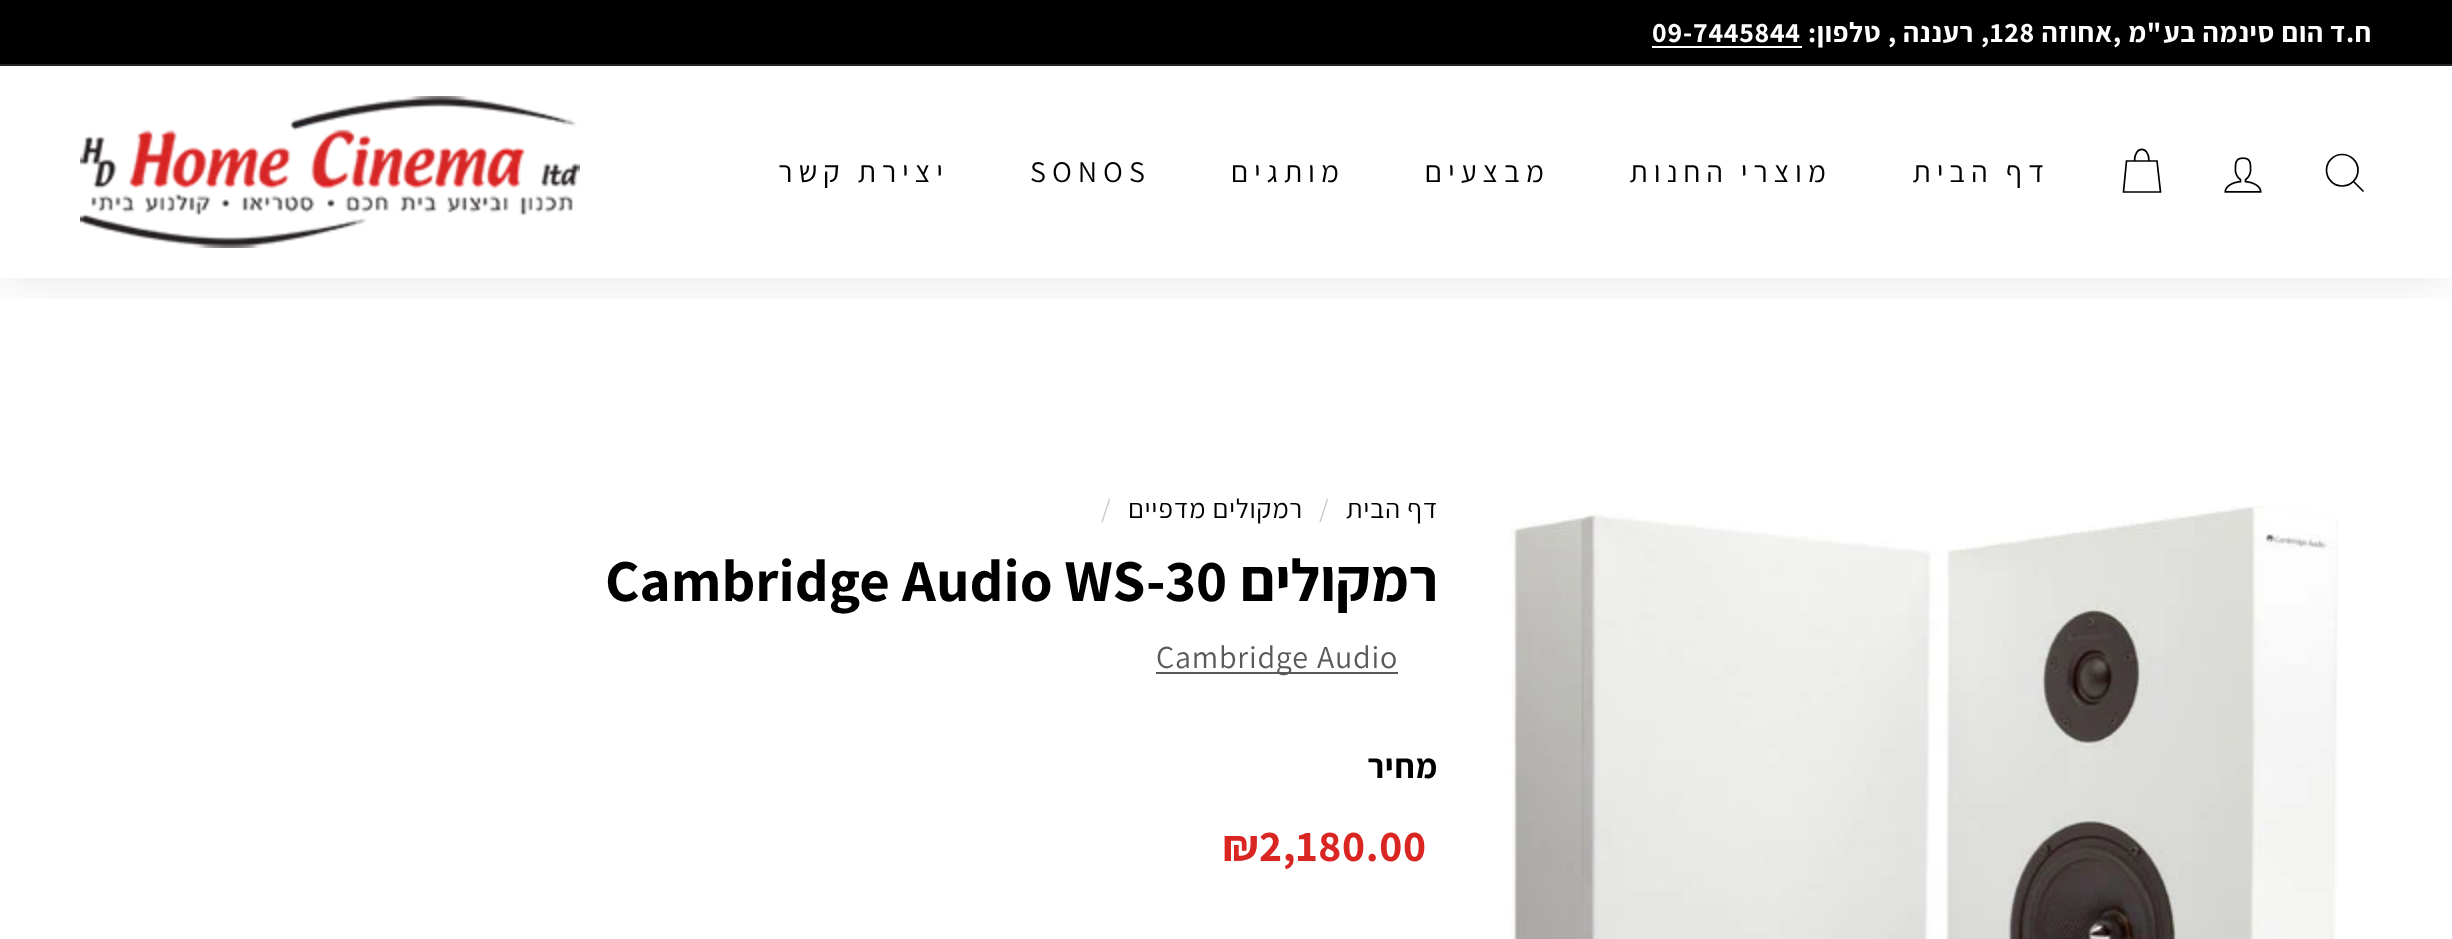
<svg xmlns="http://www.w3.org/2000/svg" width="2452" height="939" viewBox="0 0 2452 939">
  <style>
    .t1 { font: bold 28px 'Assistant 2'; letter-spacing: 0.75px; direction: rtl; fill: #fff; }
    .t2 { font: bold 28px Assistant; letter-spacing: 0.75px; direction: rtl; fill: #fff; }
    .t3 { font: bold 28px Assistant; letter-spacing: 0.75px; fill: #fff; }
    .t4 { font: bold 28px 'Assistant 2'; letter-spacing: 0.75px; fill: #fff; }
    .t5 { font: 30px Assistant; letter-spacing: 6px; direction: rtl; fill: #000; }
    .t6 { font: 30px 'Assistant 2'; letter-spacing: 6px; fill: #000; }
    .t7 { font: 27.25px Assistant; letter-spacing: 0.75px; direction: rtl; fill: #000; }
    .t8 { font: 27.25px 'Assistant 2'; letter-spacing: 0.75px; fill: #ccc; }
    .t9 { font: bold 59.5px 'Assistant 2'; direction: rtl; fill: #000; }
    .t10 { font: bold 59.5px Assistant; fill: #000; }
    .t11 { font: bold 59.5px 'Assistant 2'; fill: #000; }
    .t12 { font: 32px 'Assistant 2'; letter-spacing: 0.75px; fill: #595959; }
    .t13 { font: 32px Assistant; letter-spacing: 0.75px; fill: #595959; }
    .t14 { font: bold 34px 'Assistant 2'; letter-spacing: 0.75px; direction: rtl; fill: #000; }
    .t15 { font: bold 44px Assistant; letter-spacing: 0.75px; fill: #d92622; }
    .t16 { font: bold 44px 'Assistant 2'; letter-spacing: 0.75px; fill: #d92622; }
  </style>
  <defs>
    <clipPath id="clip1"><rect x="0" y="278" width="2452" height="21"/></clipPath>
  </defs>
  <rect width="100%" height="100%" fill="#fff"/>
  <g clip-path="url(#clip1)">
    <rect x="0" y="66" width="2452" height="212" fill="#0000001a" filter="blur(25px)"/>
  </g>
  <rect x="0" y="0" width="2452" height="64" fill="#000"/>
  <text x="2372" y="42" class="t1">ח</text>
  <text x="2346" y="42" class="t1">ד הום סינמה בע</text>
  <text x="2162" y="42" class="t2">"</text>
  <text x="2147" y="42" class="t1">מ</text>
  <text x="2113" y="42" class="t1">אחוזה</text>
  <text x="1990" y="42" class="t3">128</text>
  <text x="1974" y="42" class="t1">רעננה</text>
  <text x="1881" y="42" class="t1">טלפון</text>
  <text x="1817" y="42" class="t2">:</text>
  <text x="1693" y="42" class="t3">7445844</text>
  <text x="1683" y="42" class="t4">-</text>
  <rect x="1652" y="46" width="150" height="2" fill="#fff"/>
  <text x="1652" y="42" class="t3">09</text>
  <text x="2355" y="42" class="t2">.</text>
  <text x="2122" y="42" class="t2">,</text>
  <text x="1990" y="42" class="t2">,</text>
  <text x="1897" y="42" class="t2">,</text>
  <rect x="0" y="64" width="2452" height="2" fill="#262626"/>
  <path d="M2358 170C2358 179 2351 186 2342 186C2333.5 186 2326.5 179 2326.5 170C2326.5 161.5 2333.5 154.5 2342 154.5C2351 154.5 2358 161.5 2358 170ZM2363.5 191.5L2353.5 181.5" fill="none" stroke="#000" stroke-width="1.7"/>
  <image x="2224" y="157" width="38" height="36" href="images/1.png"/>
  <path d="M2134.5 161C2134.5 145.5 2149 145.5 2149 161M2126.5 161H2157L2160.5 192H2123.5Z" fill="none" stroke="#000" stroke-width="1.7"/>
  <text x="2050" y="182" class="t5">דף הבית</text>
  <text x="1832" y="182" class="t5">מוצרי החנות</text>
  <text x="1550" y="182" class="t5">מבצעים</text>
  <text x="1345" y="182" class="t5">מותגים</text>
  <text x="1030" y="182" class="t6">SONOS</text>
  <text x="949" y="182" class="t5">יצירת קשר</text>
  <image x="80" y="96" width="500" height="152" href="images/2.png"/>
  <image x="1510" y="506" width="828" height="433" href="images/3.png"/>
  <text x="1438" y="518" class="t7">דף הבית</text>
  <text x="1319" y="518" class="t8">/</text>
  <text x="1303" y="518" class="t7">רמקולים מדפיים</text>
  <text x="1101" y="518" class="t8">/</text>
  <text x="1438" y="601" class="t9">רמקולים</text>
  <text x="1165" y="601" class="t10">30</text>
  <text x="1146" y="601" class="t11">-</text>
  <text x="936" y="601" class="t10">udio WS</text>
  <text x="902" y="601" class="t11">A</text>
  <text x="605" y="601" class="t10">Cambridge</text>
  <text x="1335" y="668" class="t12">udio</text>
  <text x="1317" y="668" class="t13">A</text>
  <rect x="1156" y="672" width="242" height="2" fill="#595959"/>
  <text x="1156" y="668" class="t12">Cambridge</text>
  <text x="1438" y="778" class="t14">מחיר</text>
  <text x="1259" y="861" class="t15">2,180.00</text>
  <text x="1222" y="861" class="t16">₪</text>
</svg>
